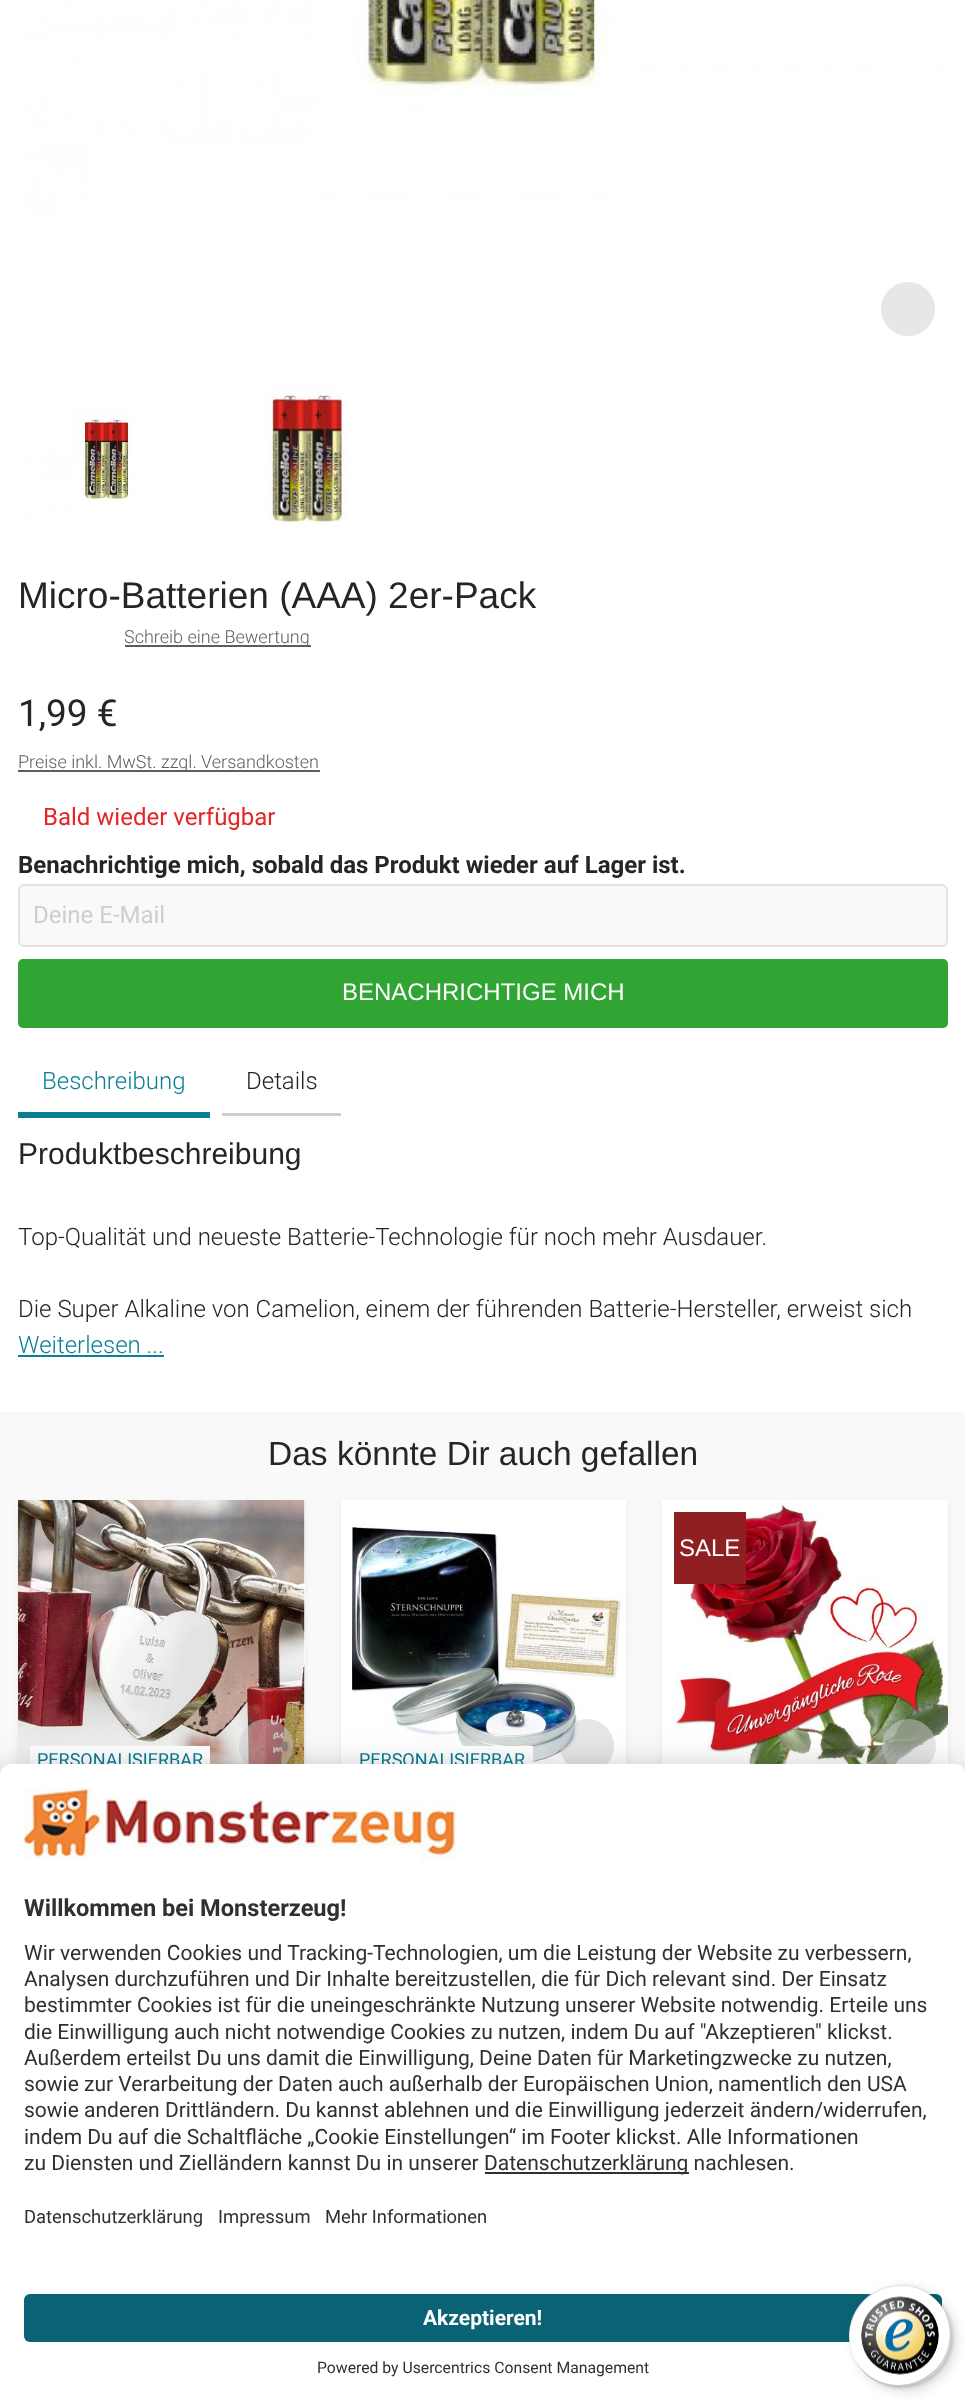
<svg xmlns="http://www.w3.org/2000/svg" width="965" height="2401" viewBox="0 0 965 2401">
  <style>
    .t1 { font: 37px Liberation Sans; fill: #252525; }
    .t2 { font: 300 18px Roboto; fill: #5d5d5d; }
    .t3 { font: 37px Roboto; fill: #252525; }
    .t4 { font: 24px Roboto; fill: #e52427; }
    .t5 { font: bold 24px Roboto; fill: #252525; }
    .t6 { font: 24px Roboto; fill: #cecece; }
    .t7 { font: 24px Liberation Sans; fill: #fff; }
    .t8 { font: 300 24px Roboto; fill: #0c7f95; }
    .t9 { font: 300 24px Roboto; fill: #252525; }
    .t10 { font: 30px Liberation Sans; fill: #252525; }
    .t11 { font: 33.5px Liberation Sans; fill: #252525; }
    .t12 { font: 18px Roboto; fill: #0c7f95; }
    .t13 { font: bold 23.6px Roboto; fill: #303030; }
    .t14 { font: 21px Roboto; fill: #303030; }
    .t15 { font: 18.4px Roboto; fill: #303030; }
    .t16 { font: bold 21px Roboto; fill: #fff; }
    .t17 { font: 15.75px Roboto; fill: #303030; }
  </style>
  <rect width="100%" height="100%" fill="#f9f9f9"/>
  <rect x="0" y="0" width="965" height="1412" fill="#fff"/>
  <image x="18" y="0" width="929" height="348" href="images/1.png"/>
  <circle cx="908" cy="309" r="27" fill="#e7e7e7"/>
  <image x="18" y="372" width="177" height="177" href="images/2.png"/>
  <image x="219" y="372" width="177" height="177" href="images/3.png"/>
  <text x="18" y="608" class="t1">Micro-Batterien (AAA) 2er-Pack</text>
  <rect x="125" y="645" width="186" height="2" fill="#5d5d5d"/>
  <text x="124" y="643" class="t2">Schreib eine Bewertung</text>
  <text x="18" y="726" class="t3">1,99 €</text>
  <rect x="18" y="770" width="302" height="2" fill="#5d5d5d"/>
  <text x="18" y="768" class="t2">Preise inkl. MwSt. zzgl. Versandkosten</text>
  <text x="43" y="825" class="t4">Bald wieder verfügbar</text>
  <text x="18" y="873" class="t5">Benachrichtige mich, sobald das Produkt wieder auf Lager ist.</text>
  <rect x="19" y="885" width="928" height="61" rx="5" fill="#f9f9f9" stroke="#e2e2e2" stroke-width="2"/>
  <text x="33" y="923" class="t6">Deine E-Mail</text>
  <rect x="19.5" y="960.5" width="927" height="66" rx="3.5" fill="#31a534" stroke="#31a534" stroke-width="3"/>
  <text x="342" y="1000" class="t7">BENACHRICHTIGE MICH</text>
  <rect x="18" y="1112" width="192" height="6" fill="#0c7f95"/>
  <text x="42" y="1089" class="t8">Beschreibung</text>
  <path d="M222 1112V1116H341V1056H340V1112Z" fill="#cecece"/>
  <path d="M222 1112V1113H341V1053H340V1112Z" fill="#fff"/>
  <text x="246" y="1089" class="t9">Details</text>
  <text x="18" y="1164" class="t10">Produktbeschreibung</text>
  <text x="18" y="1245" class="t9">Top-Qualität und neueste Batterie-Technologie für noch mehr Ausdauer.</text>
  <text x="18" y="1317" class="t9">Die Super Alkaline von Camelion, einem der führenden Batterie-Hersteller, erweist sich</text>
  <text x="18" y="1353" class="t8">Weiterlesen ...</text>
  <rect x="18" y="1355" width="146" height="2" fill="#0c7f95"/>
  <text x="268" y="1465" class="t11">Das könnte Dir auch gefallen</text>
  <rect x="662" y="1503" width="286" height="450" fill="#25252512" filter="blur(3px)"/>
  <rect x="662" y="1500" width="11" height="264" fill="#fff"/>
  <image x="673" y="1500" width="275" height="264" href="images/4.png"/>
  <rect x="674" y="1512" width="72" height="72" fill="#8f1f20"/>
  <text x="679" y="1556" class="t7">SALE</text>
  <circle cx="909" cy="1746" r="27" fill="#cecece80"/>
  <rect x="18" y="1503" width="287" height="450" fill="#25252512" filter="blur(3px)"/>
  <rect x="304" y="1500" width="1" height="264" fill="#fff"/>
  <image x="18" y="1500" width="287" height="264" href="images/5.png"/>
  <rect x="30" y="1746" width="180" height="18" fill="#fff"/>
  <text x="37" y="1766" class="t12">PERSONALISIERBAR</text>
  <circle cx="266" cy="1746" r="27" fill="#cecece80"/>
  <rect x="341" y="1503" width="285" height="450" fill="#25252512" filter="blur(3px)"/>
  <rect x="341" y="1500" width="285" height="264" fill="#fff"/>
  <image x="352" y="1523" width="273" height="241" href="images/6.png"/>
  <rect x="462" y="1746" width="71" height="18" fill="#fff"/>
  <text x="359" y="1766" class="t12">PERSONALISIERBAR</text>
  <circle cx="587" cy="1746" r="27" fill="#cecece80"/>
  <rect x="0" y="1794" width="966" height="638" rx="12" fill="#0000004d" filter="blur(21px)"/>
  <rect x="0" y="1772" width="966" height="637" rx="12" fill="#00000038" filter="blur(19.5px)"/>
  <path d="M12 1764H954C960.5 1764 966 1769.5 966 1776V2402H0V1776C0 1769.5 5.5 1764 12 1764Z" fill="#fff"/>
  <path d="M12 1764H954C960.5 1764 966 1769.5 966 1776V2276H0V1776C0 1769.5 5.5 1764 12 1764Z" fill="#fff"/>
  <image x="24" y="1788" width="432" height="72" href="images/7.png"/>
  <text x="24" y="1916" class="t13">Willkommen bei Monsterzeug!</text>
  <text x="24" y="1960" class="t14">Wir verwenden Cookies und Tracking-Technologien, um die Leistung der Website zu verbessern,</text>
  <text x="24" y="1986" class="t14">Analysen durchzuführen und Dir Inhalte bereitzustellen, die für Dich relevant sind. Der Einsatz</text>
  <text x="24" y="2012" class="t14">bestimmter Cookies ist für die uneingeschränkte Nutzung unserer Website notwendig. Erteile uns</text>
  <text x="24" y="2039" class="t14">die Einwilligung auch nicht notwendige Cookies zu nutzen, indem Du auf "Akzeptieren</text>
  <text x="815" y="2039" class="t14">" klickst.</text>
  <text x="24" y="2065" class="t14">Außerdem erteilst Du uns damit die Einwilligung, Deine Daten für Marketingzwecke zu nutzen,</text>
  <text x="24" y="2091" class="t14">sowie zur Verarbeitung der Daten auch außerhalb der Europäischen Union, namentlich den USA</text>
  <text x="24" y="2117" class="t14">sowie anderen Drittländern. Du kannst ablehnen und die Einwilligung jederzeit ändern/widerrufen,</text>
  <text x="24" y="2144" class="t14">indem Du auf die Schaltfläche „Cookie Einstellungen“ im Footer klickst. Alle Informationen</text>
  <text x="24" y="2170" class="t14">zu Diensten und Zielländern kannst Du in unserer</text>
  <rect x="485" y="2172" width="204" height="2" fill="#303030"/>
  <text x="484" y="2170" class="t14">Datenschutzerklärung nachlesen.</text>
  <text x="24" y="2223" class="t15">Datenschutzerklärung</text>
  <text x="218" y="2223" class="t15">Impressum</text>
  <text x="325" y="2223" class="t15">Mehr Informationen</text>
  <rect x="24" y="2294" width="918" height="48" rx="6" fill="#0a6374"/>
  <text x="423" y="2325" class="t16">Akzeptieren!</text>
  <text x="317" y="2373" class="t17">Powered by Usercentrics Consent Management</text>
  <rect x="854" y="2289" width="102" height="102" rx="51" fill="#00000026" filter="blur(6px)"/>
  <rect x="851" y="2286" width="102" height="102" rx="51" fill="#00000026" filter="blur(1.5px)"/>
  <circle cx="900" cy="2336" r="51" fill="#fff"/>
  <path d="M902 2286C912 2286 920 2289 928 2293C905 2278 873 2285 858 2307C842 2330 848 2361 870 2377C831 2348 852 2286 902 2286Z" fill="#0000001a"/>
  <path d="M856 2361C861 2371 870 2379 880 2383C925 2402 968 2352 944 2311C956 2333 949 2362 927 2376C903 2392 871 2386 856 2361Z" fill="#00000033"/>
  <path d="M861 2369C880 2392 915 2393 936 2372C954 2354 956 2324 940 2304C946 2312 949 2321 950 2331C954 2380 894 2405 861 2369Z" fill="#32323233"/>
  <path d="M861 2369C880 2392 915 2393 936 2372C957 2351 956 2316 933 2297C955 2317 956 2350 935 2371C914 2392 881 2391 861 2369Z" fill="#ffffff4d"/>
  <image x="861" y="2296" width="78" height="79" href="images/8.png"/>
</svg>
